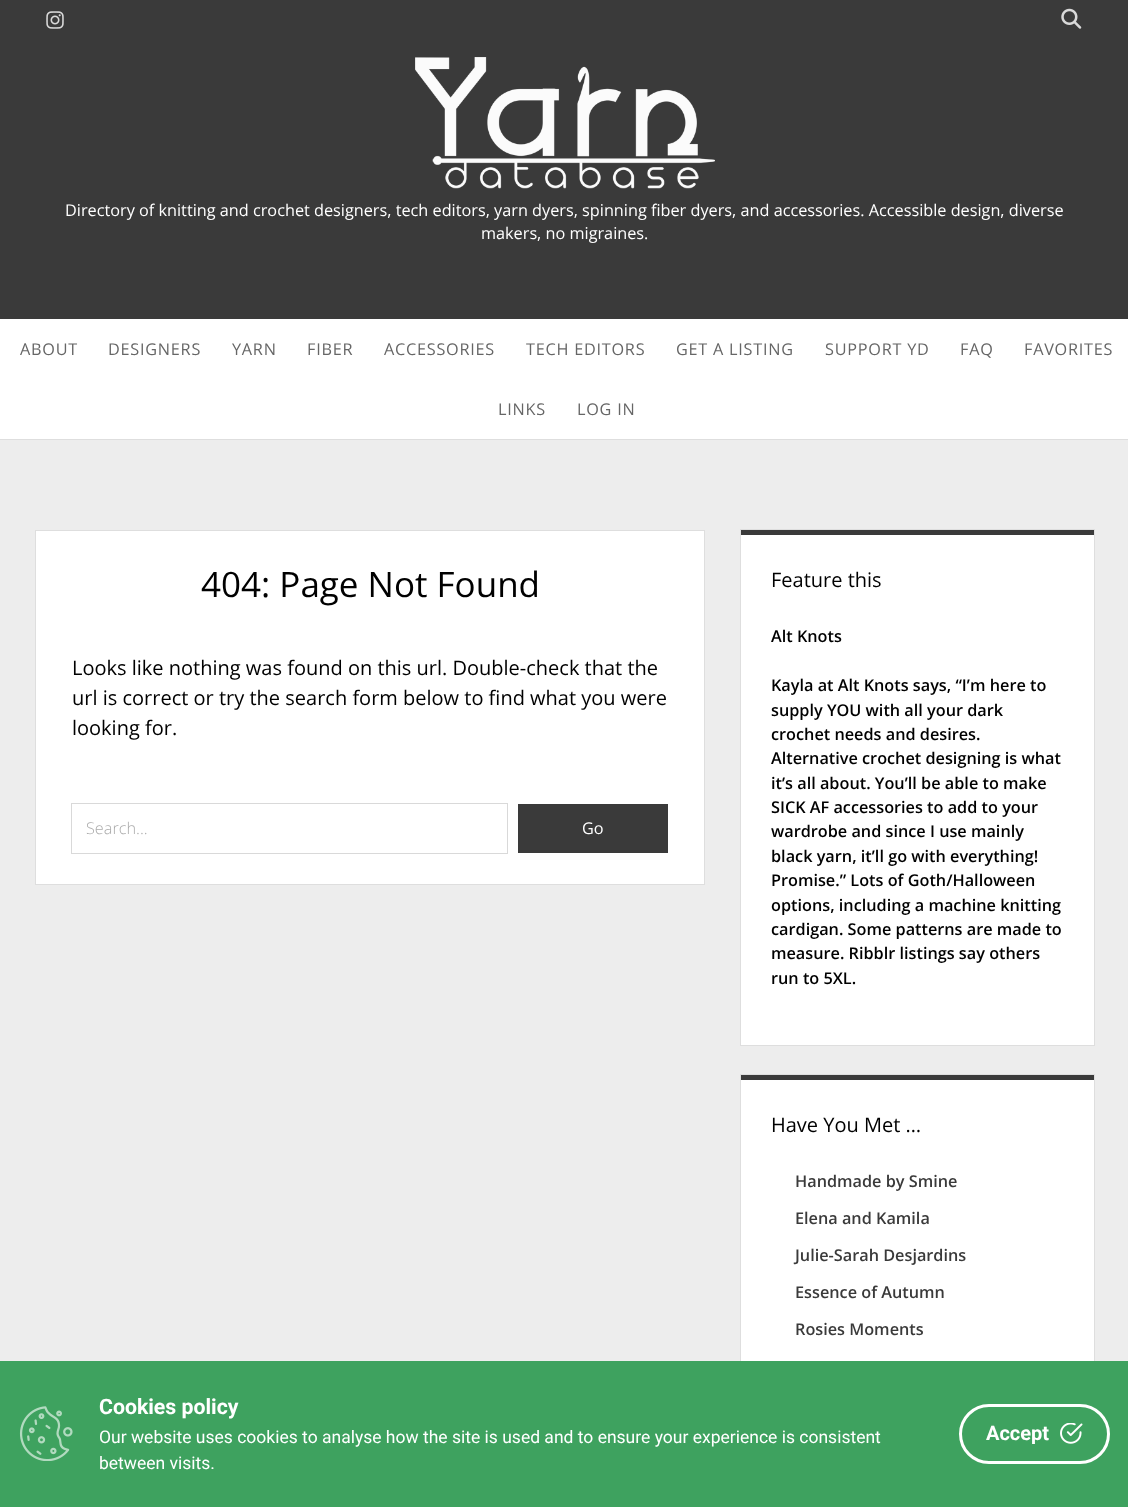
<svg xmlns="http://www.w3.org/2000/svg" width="1128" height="1507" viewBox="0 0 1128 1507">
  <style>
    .t1 { font: 16.25px Open Sans; fill: #fff; }
    .t2 { font: 16.25px Open Sans; letter-spacing: 0.75px; fill: #666; }
    .t3 { font: 35px Open Sans; fill: #000; }
    .t4 { font: 20px Open Sans; fill: #000; }
    .t5 { font: 300 16.25px Open Sans; fill: #ababab; }
    .t6 { font: 600 16.25px Open Sans; fill: #000; }
    .t7 { font: 600 16.25px Open Sans; fill: #3a3a3a; }
    .t8 { font: bold 21.25px Roboto; fill: #fff; }
    .t9 { font: 17.5px Roboto; fill: #fff; }
    .t10 { font: bold 20px Roboto; fill: #fff; }
  </style>
  <rect width="100%" height="100%" fill="#ededed"/>
  <rect x="0" y="0" width="1128" height="319" fill="#3a3a3a"/>
  <image x="46" y="11" width="18" height="18" href="images/1.png"/>
  <image x="1061" y="8" width="21" height="21" href="images/2.png"/>
  <image x="415" y="57" width="300" height="132" href="images/3.png"/>
  <text x="65" y="216" class="t1">Directory of knitting and crochet designers, tech editors, yarn dyers, spinning fiber dyers, and accessories. Accessible design, diverse</text>
  <text x="481" y="239" class="t1">makers, no migraines.</text>
  <rect x="0" y="319" width="1128" height="120" fill="#fff"/>
  <rect x="0" y="439" width="1128" height="1" fill="#dedede"/>
  <text x="20" y="355" class="t2">ABOUT</text>
  <text x="108" y="355" class="t2">DESIGNERS</text>
  <text x="232" y="355" class="t2">YARN</text>
  <text x="307" y="355" class="t2">FIBER</text>
  <text x="384" y="355" class="t2">ACCESSORIES</text>
  <text x="526" y="355" class="t2">TECH EDITORS</text>
  <text x="676" y="355" class="t2">GET A LISTING</text>
  <text x="825" y="355" class="t2">SUPPORT YD</text>
  <text x="960" y="355" class="t2">FAQ</text>
  <text x="1024" y="355" class="t2">FAVORITES</text>
  <text x="498" y="415" class="t2">LINKS</text>
  <text x="577" y="415" class="t2">LOG IN</text>
  <rect x="35.5" y="530.5" width="669" height="354" fill="#fff" stroke="#dedede"/>
  <text x="201" y="597" class="t3">404: Page Not Found</text>
  <text x="72" y="675" class="t4">Looks like nothing was found on this url. Double-check that the</text>
  <text x="72" y="705" class="t4">url is correct or try the search form below to find what you were</text>
  <text x="72" y="735" class="t4">looking for.</text>
  <rect x="71.5" y="803.5" width="436" height="50" fill="none" stroke="#d9d9d9"/>
  <text x="86" y="834" class="t5">Search...</text>
  <rect x="518" y="804" width="150" height="49" fill="#3a3a3a"/>
  <text x="582" y="834" class="t1">Go</text>
  <rect x="741" y="535" width="353" height="510" fill="#fff"/>
  <rect x="741" y="530" width="353" height="5" fill="#3a3a3a"/>
  <rect x="740.5" y="529.5" width="354" height="516" fill="none" stroke="#dedede"/>
  <text x="771" y="587" class="t4">Feature this</text>
  <text x="771" y="642" class="t6">Alt Knots</text>
  <text x="771" y="691" class="t6">Kayla at Alt Knots says, “I’m here to</text>
  <text x="771" y="716" class="t6">supply YOU with all your dark</text>
  <text x="771" y="740" class="t6">crochet needs and desires.</text>
  <text x="771" y="764" class="t6">Alternative crochet designing is what</text>
  <text x="771" y="789" class="t6">it’s all about. You’ll be able to make</text>
  <text x="771" y="813" class="t6">SICK AF accessories to add to your</text>
  <text x="771" y="837" class="t6">wardrobe and since I use mainly</text>
  <text x="771" y="862" class="t6">black yarn, it’ll go with everything!</text>
  <text x="771" y="886" class="t6">Promise.” Lots of Goth/Halloween</text>
  <text x="771" y="911" class="t6">options, including a machine knitting</text>
  <text x="771" y="935" class="t6">cardigan. Some patterns are made to</text>
  <text x="771" y="959" class="t6">measure. Ribblr listings say others</text>
  <text x="771" y="984" class="t6">run to 5XL.</text>
  <rect x="741" y="1080" width="353" height="281" fill="#fff"/>
  <rect x="741" y="1075" width="353" height="5" fill="#3a3a3a"/>
  <rect x="740.5" y="1074.5" width="354" height="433" fill="none" stroke="#dedede"/>
  <text x="771" y="1132" class="t4">Have You Met …</text>
  <text x="795" y="1187" class="t7">Handmade by Smine</text>
  <text x="795" y="1224" class="t7">Elena and Kamila</text>
  <text x="795" y="1261" class="t7">Julie-Sarah Desjardins</text>
  <text x="795" y="1298" class="t7">Essence of Autumn</text>
  <text x="795" y="1335" class="t7">Rosies Moments</text>
  <rect x="0" y="1361" width="1128" height="146" fill="#3ea25f"/>
  <image x="19" y="1406" width="54" height="55" href="images/4.png"/>
  <text x="99" y="1414" class="t8">Cookies policy</text>
  <text x="99" y="1443" class="t9">Our website uses cookies to analyse how the site is used and to ensure your experience is consistent</text>
  <text x="99" y="1469" class="t9">between visits.</text>
  <rect x="960.5" y="1405.5" width="148" height="57" rx="28.5" fill="none" stroke="#fff" stroke-width="3"/>
  <text x="986" y="1440" class="t10">Accept</text>
  <image x="1060" y="1423" width="23" height="21" href="images/5.png"/>
</svg>
